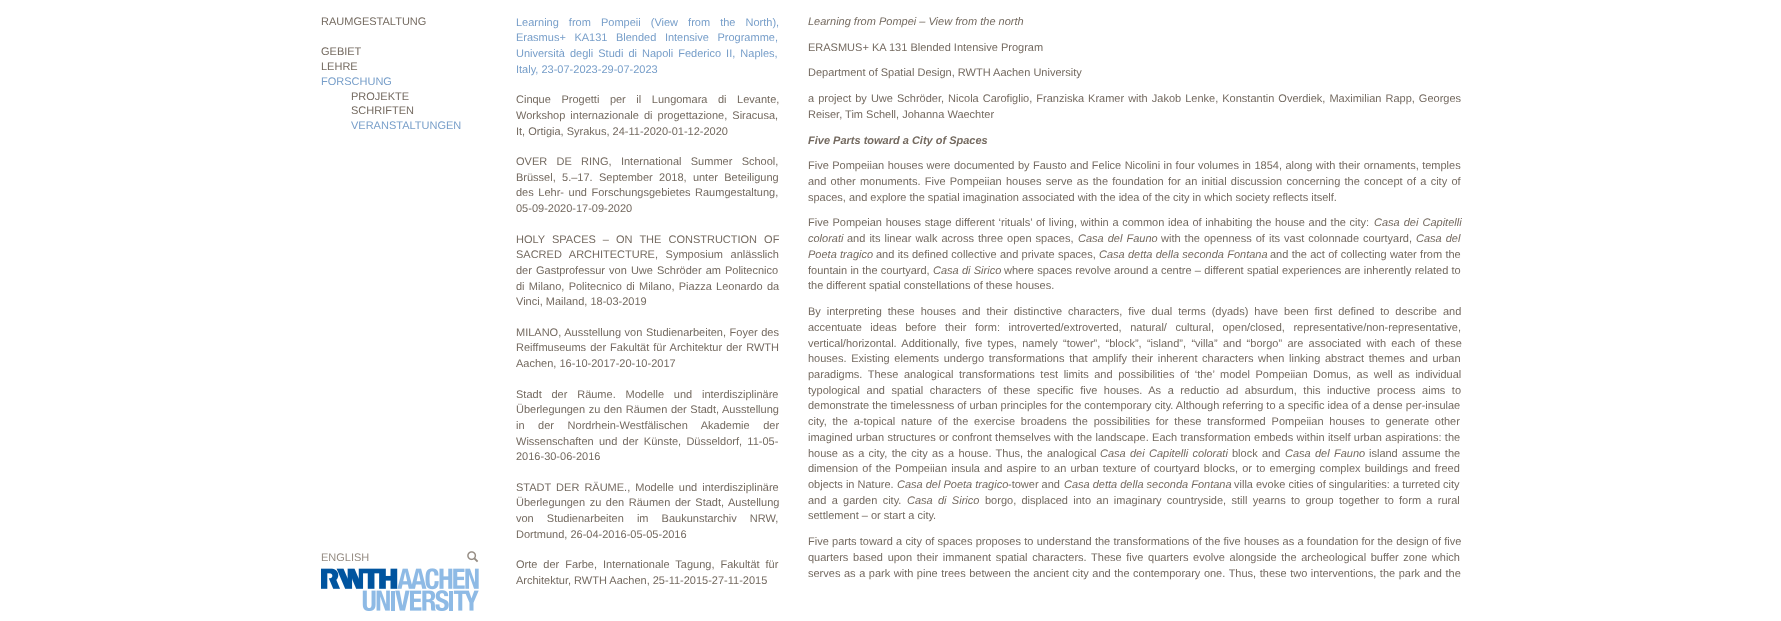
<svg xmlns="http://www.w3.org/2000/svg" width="1781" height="621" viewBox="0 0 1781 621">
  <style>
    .t1 { font: 11px Liberation Sans; fill: #746a60; }
    .t2 { font: 11px Liberation Sans; fill: #779ec9; }
    .t3 { font: 11px Liberation Sans; fill: #958c83; }
    .t4 { font: italic 11px Liberation Sans; fill: #746a60; }
    .t5 { font: italic bold 11px Liberation Sans; fill: #746a60; }
  </style>
  <rect width="100%" height="100%" fill="#fff"/>
  <text x="321" y="25" class="t1">RAUMGESTALTUNG</text>
  <text x="321" y="55" class="t1">GEBIET</text>
  <text x="321" y="70" class="t1">LEHRE</text>
  <text x="321" y="85" class="t2">FORSCHUNG</text>
  <text x="351" y="100" class="t1">PROJEKTE</text>
  <text x="351" y="114" class="t1">SCHRIFTEN</text>
  <text x="351" y="129" class="t2">VERANSTALTUNGEN</text>
  <text x="321" y="561" class="t3">ENGLISH</text>
  <image x="467" y="551" width="12" height="12" href="images/1.png"/>
  <image x="321" y="568" width="158" height="43" href="images/2.png"/>
  <text x="516" y="26" word-spacing="7" class="t2">Learning from Pompeii (View from the North),</text>
  <text x="516" y="41" word-spacing="5.5" class="t2">Erasmus+ KA131 Blended Intensive Programme,</text>
  <text x="516" y="57" word-spacing="2" class="t2">Università degli Studi di Napoli Federico II, Naples,</text>
  <text x="516" y="73" class="t2">Italy, 23-07-2023-29-07-2023</text>
  <text x="516" y="103" word-spacing="7.5" class="t1">Cinque Progetti per il Lungomara di Levante,</text>
  <text x="516" y="119" word-spacing="2" class="t1">Workshop internazionale di progettazione, Siracusa,</text>
  <text x="516" y="135" class="t1">It, Ortigia, Syrakus, 24-11-2020-01-12-2020</text>
  <text x="516" y="165" word-spacing="6.25" class="t1">OVER DE RING, International Summer School,</text>
  <text x="516" y="181" word-spacing="3.25" class="t1">Brüssel, 5.–17. September 2018, unter Beteiligung</text>
  <text x="516" y="196" word-spacing="1.5" class="t1">des Lehr- und Forschungsgebietes Raumgestaltung,</text>
  <text x="516" y="212" class="t1">05-09-2020-17-09-2020</text>
  <text x="516" y="243" word-spacing="4" class="t1">HOLY SPACES – ON THE CONSTRUCTION OF</text>
  <text x="516" y="258" word-spacing="4.5" class="t1">SACRED ARCHITECTURE, Symposium anlässlich</text>
  <text x="516" y="274" word-spacing="1" class="t1">der Gastprofessur von Uwe Schröder am Politecnico</text>
  <text x="516" y="290" word-spacing="1.25" class="t1">di Milano, Politecnico di Milano, Piazza Leonardo da</text>
  <text x="516" y="305" class="t1">Vinci, Mailand, 18-03-2019</text>
  <text x="516" y="336" word-spacing="0.5" class="t1">MILANO, Ausstellung von Studienarbeiten, Foyer des</text>
  <text x="516" y="351" word-spacing="1" class="t1">Reiffmuseums der Fakultät für Architektur der RWTH</text>
  <text x="516" y="367" class="t1">Aachen, 16-10-2017-20-10-2017</text>
  <text x="516" y="398" word-spacing="6.75" class="t1">Stadt der Räume. Modelle und interdisziplinäre</text>
  <text x="516" y="413" word-spacing="0.5" class="t1">Überlegungen zu den Räumen der Stadt, Ausstellung</text>
  <text x="516" y="429" word-spacing="10.5" class="t1">in der Nordrhein-Westfälischen Akademie der</text>
  <text x="516" y="445" word-spacing="2.25" class="t1">Wissenschaften und der Künste, Düsseldorf, 11-05-</text>
  <text x="516" y="460" class="t1">2016-30-06-2016</text>
  <text x="516" y="491" word-spacing="2" class="t1">STADT DER RÄUME., Modelle und interdisziplinäre</text>
  <text x="516" y="506" word-spacing="1.5" class="t1">Überlegungen zu den Räumen der Stadt, Austellung</text>
  <text x="516" y="522" word-spacing="10" class="t1">von Studienarbeiten im Baukunstarchiv NRW,</text>
  <text x="516" y="538" class="t1">Dortmund, 26-04-2016-05-05-2016</text>
  <text x="516" y="568" word-spacing="2.9" class="t1">Orte der Farbe, Internationale Tagung, Fakultät für</text>
  <text x="516" y="584" class="t1">Architektur, RWTH Aachen, 25-11-2015-27-11-2015</text>
  <text x="808" y="25" class="t4">Learning from Pompei – View from the north</text>
  <text x="808" y="51" class="t1">ERASMUS+ KA 131 Blended Intensive Program</text>
  <text x="808" y="76" class="t1">Department of Spatial Design, RWTH Aachen University</text>
  <text x="808" y="102" word-spacing="1" class="t1">a project by Uwe Schröder, Nicola Carofiglio, Franziska Kramer with Jakob Lenke, Konstantin Overdiek, Maximilian Rapp, Georges</text>
  <text x="808" y="118" class="t1">Reiser, Tim Schell, Johanna Waechter</text>
  <text x="808" y="144" class="t5">Five Parts toward a City of Spaces</text>
  <text x="808" y="169" word-spacing="0.4" class="t1">Five Pompeiian houses were documented by Fausto and Felice Nicolini in four volumes in 1854, along with their ornaments, temples</text>
  <text x="808" y="185" word-spacing="1.2" class="t1">and other monuments. Five Pompeiian houses serve as the foundation for an initial discussion concerning the concept of a city of</text>
  <text x="808" y="201" class="t1">spaces, and explore the spatial imagination associated with the idea of the city in which society reflects itself.</text>
  <text x="808" y="226" word-spacing="0.6" class="t1">Five Pompeian houses stage different ‘rituals’ of living, within a common idea of inhabiting the house and the city:</text>
  <text x="1374" y="226" word-spacing="1" class="t4">Casa dei Capitelli</text>
  <text x="808" y="242" class="t4">colorati</text>
  <text x="847" y="242" word-spacing="1" class="t1">and its linear walk across three open spaces,</text>
  <text x="1078" y="242" word-spacing="1" class="t4">Casa del Fauno</text>
  <text x="1161" y="242" word-spacing="1" class="t1">with the openness of its vast colonnade courtyard,</text>
  <text x="1416" y="242" word-spacing="1" class="t4">Casa del</text>
  <text x="808" y="258" word-spacing="0.25" class="t4">Poeta tragico</text>
  <text x="876" y="258" word-spacing="0.25" class="t1">and its defined collective and private spaces,</text>
  <text x="1099" y="258" word-spacing="0.25" class="t4">Casa detta della seconda Fontana</text>
  <text x="1270" y="258" word-spacing="0.25" class="t1">and the act of collecting water from the</text>
  <text x="808" y="274" word-spacing="0.2" class="t1">fountain in the courtyard,</text>
  <text x="933" y="274" word-spacing="0.2" class="t4">Casa di Sirico</text>
  <text x="1004" y="274" word-spacing="0.2" class="t1">where spaces revolve around a centre – different spatial experiences are inherently related to</text>
  <text x="808" y="289" class="t1">the different spatial constellations of these houses.</text>
  <text x="808" y="315" word-spacing="2.9" class="t1">By interpreting these houses and their distinctive characters, five dual terms (dyads) have been first defined to describe and</text>
  <text x="808" y="331" word-spacing="5.5" class="t1">accentuate ideas before their form: introverted/extroverted, natural/ cultural, open/closed, representative/non-representative,</text>
  <text x="808" y="347" word-spacing="2.25" class="t1">vertical/horizontal. Additionally, five types, namely “tower”, “block”, “island”, “villa” and “borgo” are associated with each of these</text>
  <text x="808" y="362" word-spacing="1.6" class="t1">houses. Existing elements undergo transformations that amplify their inherent characters when linking abstract themes and urban</text>
  <text x="808" y="378" word-spacing="2.5" class="t1">paradigms. These analogical transformations test limits and possibilities of ‘the’ model Pompeiian Domus, as well as individual</text>
  <text x="808" y="394" word-spacing="3.5" class="t1">typological and spatial characters of these specific five houses. As a reductio ad absurdum, this inductive process aims to</text>
  <text x="808" y="409" class="t1">demonstrate the timelessness of urban principles for the contemporary city. Although referring to a specific idea of a dense per-insulae</text>
  <text x="808" y="425" word-spacing="2.75" class="t1">city, the a-topical nature of the exercise broadens the possibilities for these transformed Pompeiian houses to generate other</text>
  <text x="808" y="441" word-spacing="0.25" class="t1">imagined urban structures or confront themselves with the landscape. Each transformation embeds within itself urban aspirations: the</text>
  <text x="808" y="457" word-spacing="1.25" class="t1">house as a city, the city as a house. Thus, the analogical</text>
  <text x="1100" y="457" word-spacing="1.25" class="t4">Casa dei Capitelli colorati</text>
  <text x="1232" y="457" word-spacing="1.25" class="t1">block and</text>
  <text x="1285" y="457" word-spacing="1.25" class="t4">Casa del Fauno</text>
  <text x="1369" y="457" word-spacing="1.25" class="t1">island assume the</text>
  <text x="808" y="472" word-spacing="1.1" class="t1">dimension of the Pompeiian insula and aspire to an urban texture of courtyard blocks, or to emerging complex buildings and freed</text>
  <text x="808" y="488" class="t1">objects in Nature.</text>
  <text x="897" y="488" class="t4">Casa del Poeta tragico</text>
  <text x="1008" y="488" class="t1">-tower and</text>
  <text x="1064" y="488" class="t4">Casa detta della seconda Fontana</text>
  <text x="1234" y="488" class="t1">villa evoke cities of singularities: a turreted city</text>
  <text x="808" y="504" word-spacing="2.25" class="t1">and a garden city.</text>
  <text x="907" y="504" word-spacing="2.25" class="t4">Casa di Sirico</text>
  <text x="985" y="504" word-spacing="2.25" class="t1">borgo, displaced into an imaginary countryside, still yearns to group together to form a rural</text>
  <text x="808" y="519" class="t1">settlement – or start a city.</text>
  <text x="808" y="545" word-spacing="0.2" class="t1">Five parts toward a city of spaces proposes to understand the transformations of the five houses as a foundation for the design of five</text>
  <text x="808" y="561" word-spacing="1.6" class="t1">quarters based upon their immanent spatial characters. These five quarters evolve alongside the archeological buffer zone which</text>
  <text x="808" y="577" word-spacing="0.5" class="t1">serves as a park with pine trees between the ancient city and the contemporary one. Thus, these two interventions, the park and the</text>
</svg>
